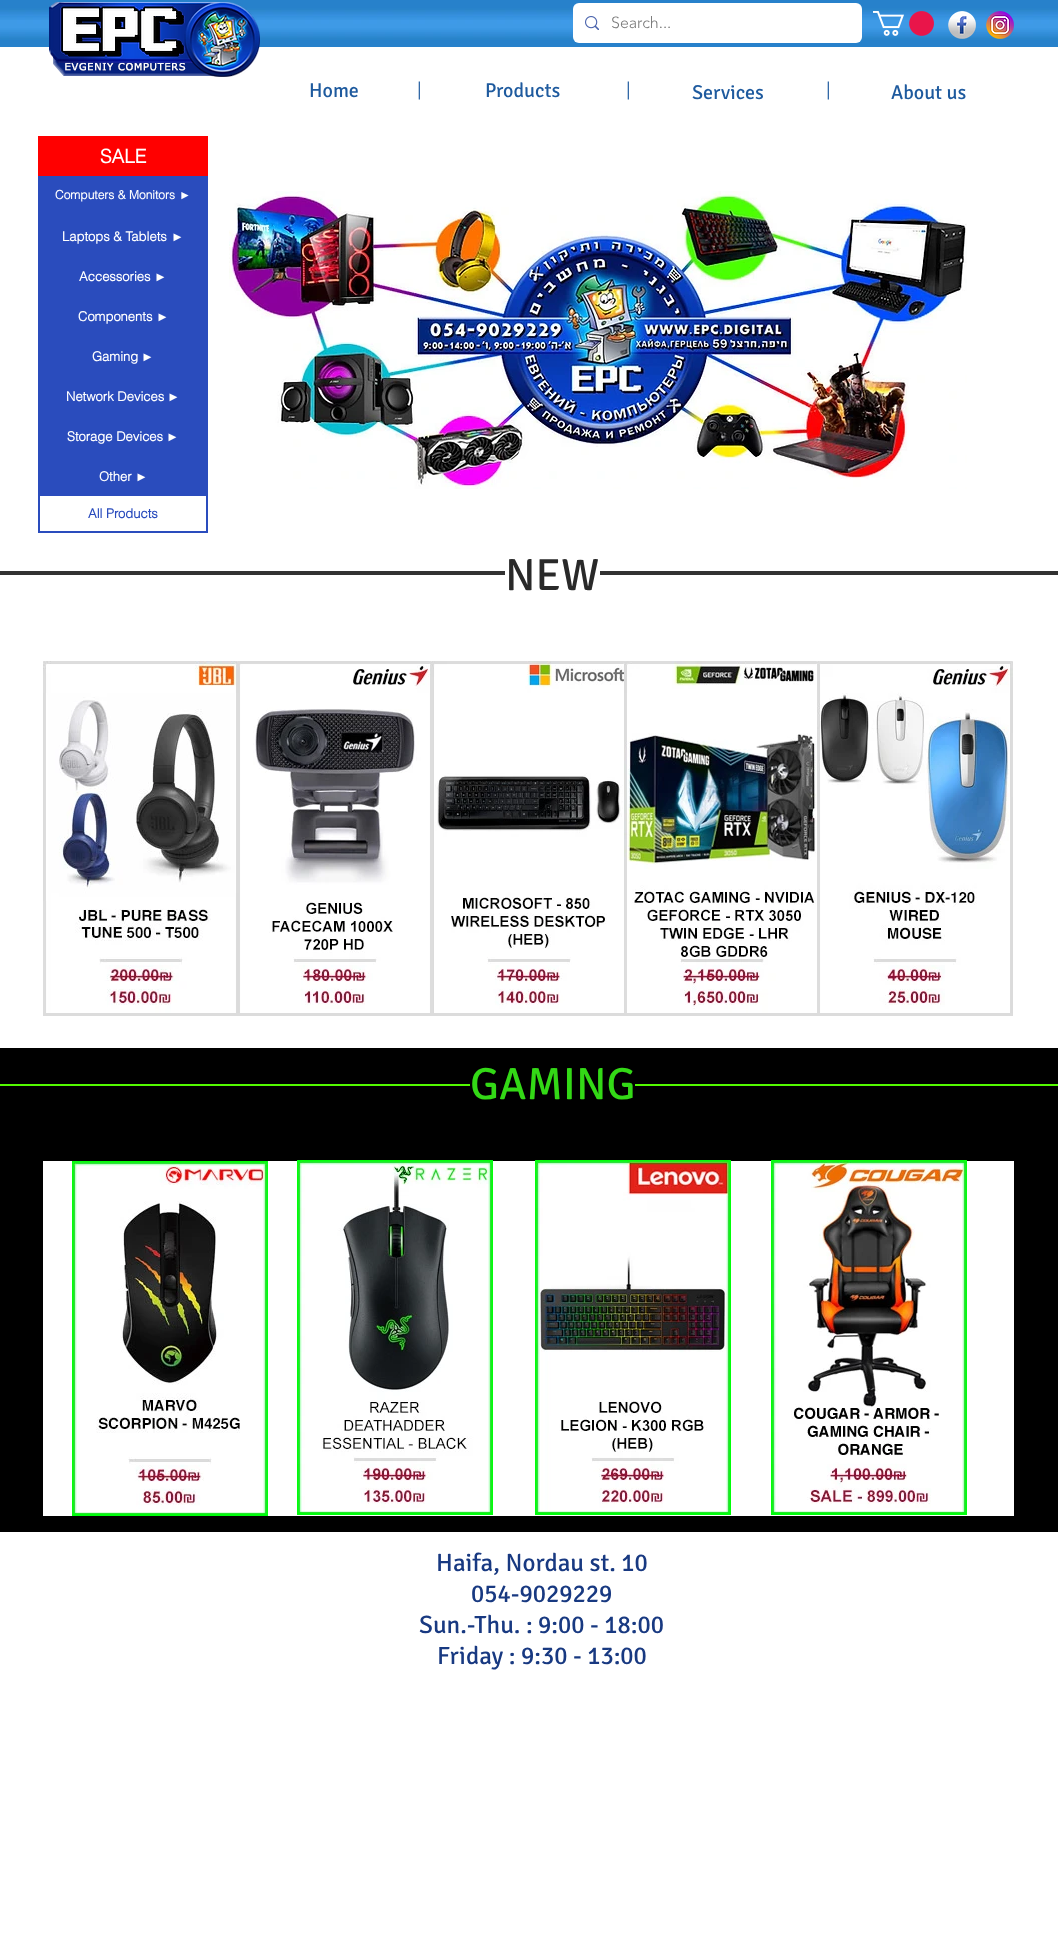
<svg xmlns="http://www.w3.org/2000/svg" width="1058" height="1943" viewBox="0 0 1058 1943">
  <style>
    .t1 { font: 300 16px 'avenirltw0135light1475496'; fill: #787878; }
    .t2 { font: 20px Signika; fill: #1e5a9e; }
    .t3 { font: 20px Raleway; fill: #1e5a9e; }
    .t4 { font: bold 19px helvetica; fill: #fff; }
    .t5 { font: bold 12px helvetica; fill: #fff; }
    .t6 { font: bold 12px Liberation Sans; fill: #fff; }
    .t7 { font: bold 13px helvetica; fill: #fff; }
    .t8 { font: bold 13px Liberation Sans; fill: #fff; }
    .t9 { font: bold 13px helvetica; fill: #2a4cbd; }
    .t10 { font: 45px Signika; fill: #292929; }
    .t11 { font: 45px Signika; fill: #33d916; }
    .t12 { font: 25px Signika; fill: #183981; }
  </style>
  <rect width="100%" height="100%" fill="#fff"/>
  <image x="0" y="0" width="1058" height="47" href="images/1.png"/>
  <image x="53" y="57" width="179" height="19" href="images/3.png"/>
  <image x="49" y="2" width="211" height="75" href="images/2.png"/>
  <rect x="573" y="3" width="289" height="40" rx="6" fill="#fff"/>
  <image x="585" y="16" width="14" height="14" href="images/4.png"/>
  <text x="611" y="28" class="t1">Search...</text>
  <image x="873" y="11" width="61" height="25" href="images/5.png"/>
  <image x="948" y="11" width="28" height="28" href="images/6.png"/>
  <image x="986" y="11" width="28" height="28" href="images/7.png"/>
  <text x="309" y="97" class="t2">Home</text>
  <text x="417" y="97" class="t3">|</text>
  <text x="485" y="97" class="t2">Products</text>
  <text x="626" y="97" class="t3">|</text>
  <text x="692" y="99" class="t2">Services</text>
  <text x="826" y="97" class="t3">|</text>
  <text x="891" y="99" class="t2">About us</text>
  <rect x="38" y="136" width="170" height="40" fill="#f00"/>
  <text x="100" y="163" class="t4">SALE</text>
  <image x="229" y="191" width="738" height="298" href="images/8.png"/>
  <rect x="38" y="176" width="170" height="40" fill="#2a4cbd"/>
  <text x="55" y="199" class="t5">Computers &amp; Monitors</text>
  <text x="179" y="199" class="t6">►</text>
  <rect x="39" y="494" width="168" height="38" fill="none" stroke="#2a4cbd" stroke-width="2"/>
  <rect x="38" y="216" width="170" height="280" fill="#2a4cbd"/>
  <text x="62" y="241" class="t7">Laptops &amp; Tablets</text>
  <text x="171" y="241" class="t8">►</text>
  <text x="79" y="281" class="t7">Accessories</text>
  <text x="154" y="281" class="t8">►</text>
  <text x="78" y="321" class="t7">Components</text>
  <text x="156" y="321" class="t8">►</text>
  <text x="92" y="361" class="t7">Gaming</text>
  <text x="141" y="361" class="t8">►</text>
  <text x="66" y="401" class="t7">Network Devices</text>
  <text x="167" y="401" class="t8">►</text>
  <text x="67" y="441" class="t7">Storage Devices</text>
  <text x="166" y="441" class="t8">►</text>
  <text x="99" y="481" class="t7">Other</text>
  <text x="135" y="481" class="t8">►</text>
  <text x="88" y="518" class="t9">All Products</text>
  <rect x="0" y="571" width="1058" height="4" fill="#323232"/>
  <rect x="505" y="571" width="95" height="4" fill="#fff"/>
  <text x="505" y="590" class="t10">NEW</text>
  <image x="43" y="661" width="196" height="355" href="images/9.png"/>
  <image x="239" y="661" width="192" height="355" href="images/10.png"/>
  <image x="431" y="661" width="193" height="355" href="images/11.png"/>
  <image x="624" y="661" width="193" height="355" href="images/12.png"/>
  <image x="817" y="661" width="196" height="355" href="images/13.png"/>
  <rect x="0" y="1048" width="1058" height="484" fill="#000"/>
  <rect x="0" y="1084" width="1058" height="2" fill="#53fa00"/>
  <rect x="470" y="1084" width="165" height="2" fill="#000"/>
  <text x="470" y="1099" class="t11">GAMING</text>
  <rect x="43" y="1161" width="971" height="355" fill="#fff"/>
  <image x="297" y="1160" width="196" height="355" href="images/14.png"/>
  <image x="535" y="1160" width="196" height="355" href="images/15.png"/>
  <image x="771" y="1160" width="196" height="355" href="images/16.png"/>
  <image x="72" y="1161" width="196" height="355" href="images/17.png"/>
  <text x="436" y="1571" class="t12">Haifa, Nordau st. 10</text>
  <text x="471" y="1602" class="t12">054-9029229</text>
  <text x="419" y="1633" class="t12">Sun.-Thu. : 9:00 - 18:00</text>
  <text x="437" y="1664" class="t12">Friday : 9:30 - 13:00</text>
</svg>
